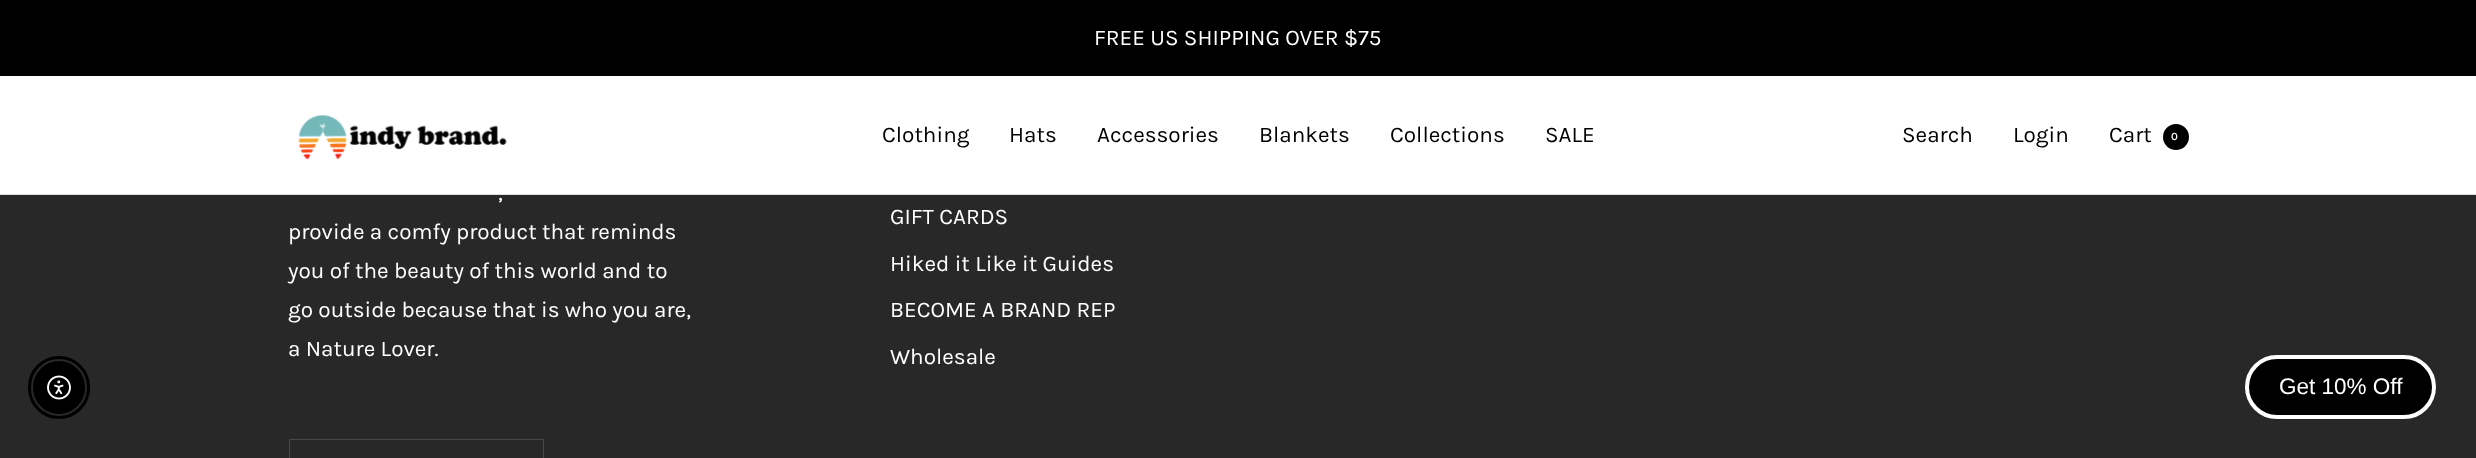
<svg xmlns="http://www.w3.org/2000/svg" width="2476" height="458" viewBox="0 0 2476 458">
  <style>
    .t1 { font: 22.5px Karla; fill: #fff; }
    .t2 { font: 22.5px Karla; fill: #000; }
    .t3 { font: 600 11px Karla; fill: #fff; }
    .t4 { font: 22.5px Liberation Sans; fill: #fff; }
  </style>
  <rect width="100%" height="100%" fill="#282828"/>
  <rect x="0" y="0" width="2476" height="76" fill="#000"/>
  <text x="1094" y="45" class="t1">FREE US SHIPPING OVER $75</text>
  <rect x="0" y="194" width="2476" height="1" fill="#dfdfdf"/>
  <rect x="0" y="76" width="2476" height="118" fill="#fff"/>
  <image x="298" y="114" width="209" height="46" href="images/1.png"/>
  <text x="882" y="142" class="t2">Clothing</text>
  <text x="1009" y="142" class="t2">Hats</text>
  <text x="1097" y="142" class="t2">Accessories</text>
  <text x="1259" y="142" class="t2">Blankets</text>
  <text x="1390" y="142" class="t2">Collections</text>
  <text x="1545" y="142" class="t2">SALE</text>
  <text x="1902" y="142" class="t2">Search</text>
  <text x="2013" y="142" class="t2">Login</text>
  <text x="2109" y="142" class="t2">Cart</text>
  <circle cx="2176" cy="137" r="13" fill="#000"/>
  <text x="2171" y="140" class="t3">0</text>
  <text x="498" y="200" class="t1">,</text>
  <text x="288" y="239" class="t1">provide a comfy product that reminds</text>
  <text x="288" y="278" class="t1">you of the beauty of this world and to</text>
  <text x="288" y="317" class="t1">go outside because that is who you are,</text>
  <text x="288" y="356" class="t1">a Nature Lover.</text>
  <text x="890" y="224" class="t1">GIFT CARDS</text>
  <text x="890" y="271" class="t1">Hiked it Like it Guides</text>
  <text x="890" y="317" class="t1">BECOME A BRAND REP</text>
  <text x="890" y="364" class="t1">Wholesale</text>
  <rect x="289.5" y="439.5" width="254" height="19" fill="none" stroke="#484848"/>
  <rect x="29.5" y="357.5" width="59" height="60" rx="29.5" fill="none" stroke="#000" stroke-width="3"/>
  <rect x="33.5" y="361.5" width="51" height="52" rx="25.5" fill="#000" stroke="#000"/>
  <image x="47" y="375" width="24" height="25" href="images/2.png"/>
  <rect x="2247" y="357" width="187" height="60" rx="30" fill="#000" stroke="#fff" stroke-width="4"/>
  <text x="2279" y="394" class="t4">Get 10% Off</text>
</svg>
